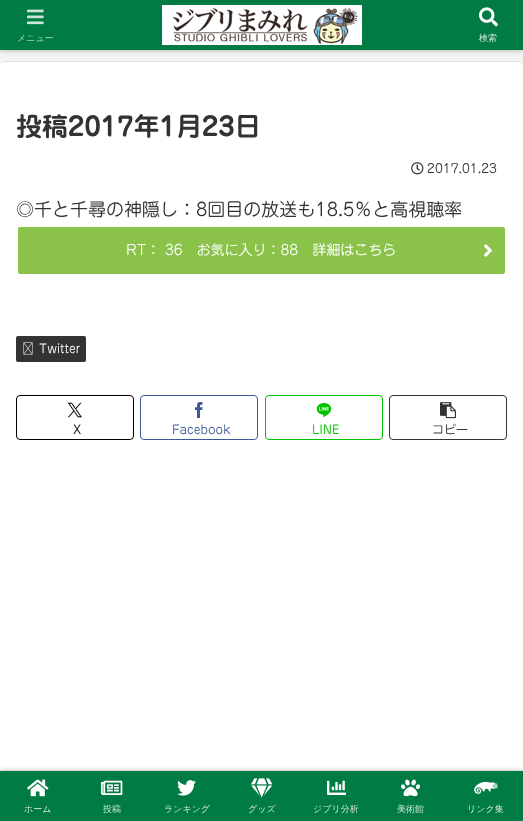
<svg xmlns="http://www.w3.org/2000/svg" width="523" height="821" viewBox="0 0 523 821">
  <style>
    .t1 { font: 500 9px WenQuanYi Zen Hei; fill: #a3cfbb; }
    .t2 { font: 500 9px WenQuanYi Zen Hei; fill: #cce5d9; }
    .t3 { font: 600 26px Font; fill: #333; }
    .t4 { font: 12.5px Font; fill: #333; }
    .t5 { font: 18px Font; fill: #333; }
    .t6 { font: 14px Font; fill: #fff; }
    .t7 { font: 12px Font; fill: #fff; }
    .t8 { font: 12px Font; fill: #000; }
    .t9 { font: 12px Font; fill: #3b5998; }
    .t10 { font: 12px Font; fill: #00c300; }
    .t11 { font: 12px Font; fill: #333; }
  </style>
  <rect width="100%" height="100%" fill="#f3f3f2"/>
  <rect x="0" y="0" width="523" height="50" fill="#a9a9a9" filter="blur(2.5px)"/>
  <rect x="0" y="0" width="523" height="50" fill="#007b43"/>
  <image x="27" y="9" width="17" height="16" href="images/1.png"/>
  <text x="17" y="41" class="t1">メニュー</text>
  <image x="162" y="5" width="200" height="40" href="images/2.png"/>
  <image x="479" y="7" width="19" height="20" href="images/3.png"/>
  <text x="479" y="41" class="t2">検索</text>
  <rect x="-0.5" y="61.5" width="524" height="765" rx="4.5" fill="none" stroke="#e0e0df"/>
  <rect x="0" y="62" width="523" height="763" rx="4" fill="#fff"/>
  <text x="16" y="136" class="t3">投稿2017年1月23日</text>
  <image x="411" y="162" width="13" height="13" href="images/4.png"/>
  <text x="427" y="173" class="t4">2017.01.23</text>
  <text x="16" y="216" class="t5">◎千と千尋の神隠し：8回目の放送も18.5％と高視聴率</text>
  <rect x="18" y="227" width="487" height="47" rx="2" fill="#8bc34a"/>
  <text x="126" y="255" class="t6">RT： 36　お気に入り：88　詳細はこちら</text>
  <image x="484" y="244" width="8" height="13" href="images/5.png"/>
  <rect x="16" y="336" width="70" height="26" rx="2" fill="#333"/>
  <image x="23" y="342" width="10" height="13" href="images/6.png"/>
  <text x="39" y="353" class="t7">Twitter</text>
  <rect x="16.5" y="395.5" width="117" height="44" rx="3.5" fill="none" stroke="#000"/>
  <image x="67" y="402" width="15" height="16" href="images/7.png"/>
  <text x="73" y="434" class="t8">X</text>
  <rect x="140.5" y="395.5" width="117" height="44" rx="3.5" fill="none" stroke="#3b5998"/>
  <image x="195" y="402" width="8" height="16" href="images/8.png"/>
  <text x="172" y="434" class="t9">Facebook</text>
  <rect x="265.5" y="395.5" width="117" height="44" rx="3.5" fill="none" stroke="#00c300"/>
  <image x="316" y="403" width="16" height="14" href="images/9.png"/>
  <text x="312" y="434" class="t10">LINE</text>
  <rect x="389.5" y="395.5" width="117" height="44" rx="3.5" fill="none" stroke="#333"/>
  <image x="440" y="402" width="16" height="17" href="images/10.png"/>
  <text x="432" y="434" class="t11">コピー</text>
  <rect x="0" y="771" width="523" height="50" fill="#a9a9a9" filter="blur(2.5px)"/>
  <rect x="0" y="771" width="523" height="50" fill="#007b43"/>
  <image x="27" y="779" width="22" height="18" href="images/11.png"/>
  <text x="24" y="812" class="t2">ホーム</text>
  <image x="101" y="780" width="22" height="15" href="images/12.png"/>
  <text x="103" y="812" class="t2">投稿</text>
  <image x="177" y="780" width="19" height="16" href="images/13.png"/>
  <text x="164" y="812" class="t2">ランキング</text>
  <image x="251" y="778" width="22" height="20" href="images/14.png"/>
  <text x="248" y="812" class="t2">グッズ</text>
  <image x="327" y="780" width="19" height="15" href="images/15.png"/>
  <text x="313" y="812" class="t2">ジブリ分析</text>
  <image x="401" y="779" width="19" height="18" href="images/16.png"/>
  <text x="397" y="812" class="t2">美術館</text>
  <image x="474" y="781" width="24" height="13" href="images/17.png"/>
  <text x="467" y="812" class="t2">リンク集</text>
</svg>
